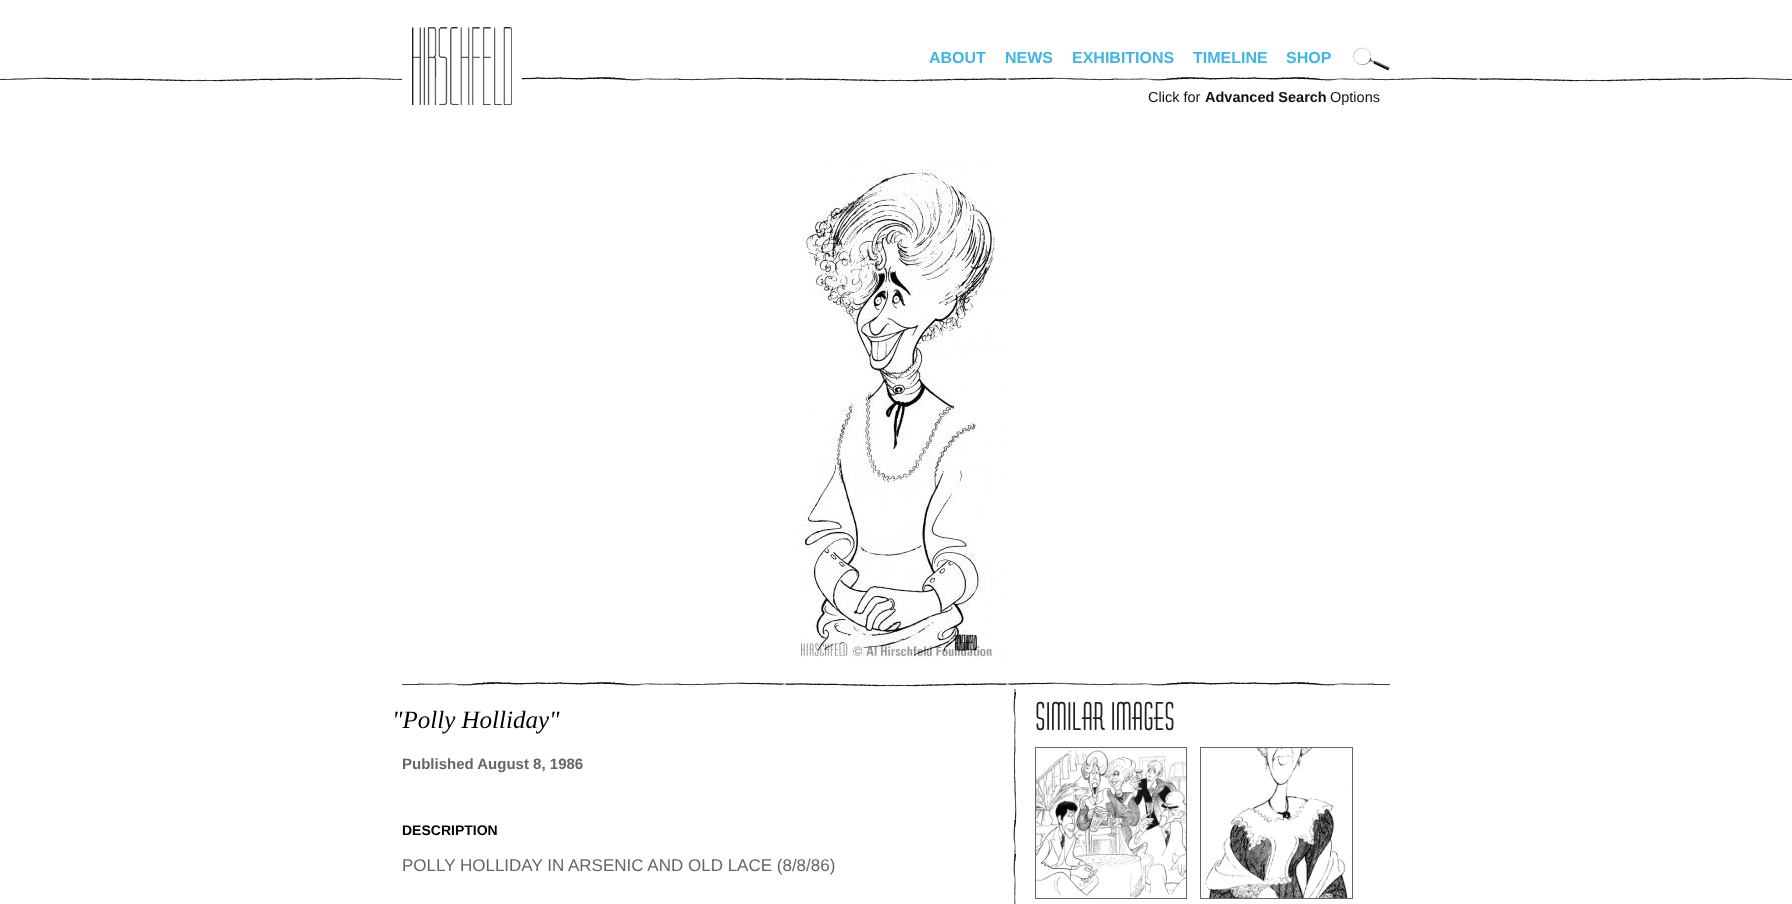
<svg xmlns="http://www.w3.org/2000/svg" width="1792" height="904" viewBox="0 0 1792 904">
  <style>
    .t1 { font: bold 16px Liberation Sans; fill: #41b6e4; }
    .t2 { font: 14.5px Liberation Sans; fill: #111; }
    .t3 { font: bold 14.5px Liberation Sans; fill: #111; }
    .t4 { font: italic 25px Liberation Serif; fill: #000; }
    .t5 { font: bold 15px Liberation Sans; fill: #666; }
    .t6 { font: bold 14px Liberation Sans; fill: #000; }
    .t7 { font: 17px Liberation Sans; fill: #666; }
    .t8 { font: bold 39px 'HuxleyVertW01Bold'; fill: #222; }
  </style>
  <rect width="100%" height="100%" fill="#fff"/>
  <image x="0" y="77" width="1792" height="5" href="images/1.png"/>
  <image x="402" y="27" width="120" height="78" href="images/2.png"/>
  <text x="929" y="63" class="t1">ABOUT</text>
  <text x="1005" y="63" class="t1">NEWS</text>
  <text x="1072" y="63" class="t1">EXHIBITIONS</text>
  <text x="1193" y="63" class="t1">TIMELINE</text>
  <text x="1286" y="63" class="t1">SHOP</text>
  <image x="1353" y="47" width="37" height="24" href="images/3.png"/>
  <text x="1148" y="102" class="t2">Click for</text>
  <text x="1205" y="102" class="t3">Advanced Search</text>
  <text x="1330" y="102" class="t2">Options</text>
  <image x="402" y="682" width="988" height="5" href="images/4.png"/>
  <image x="799" y="161" width="209" height="500" href="images/5.png"/>
  <image x="1012" y="689" width="5" height="215" href="images/6.png"/>
  <text x="392" y="728" class="t4">"Polly Holliday"</text>
  <text x="402" y="769" class="t5">Published August 8, 1986</text>
  <text x="402" y="835" class="t6">DESCRIPTION</text>
  <text x="402" y="871" class="t7">POLLY HOLLIDAY IN ARSENIC AND OLD LACE (8/8/86)</text>
  <text x="1035" y="730" class="t8">SIMILAR IMAGES</text>
  <rect x="1035.5" y="747.5" width="151" height="151" fill="none" stroke="#666"/>
  <image x="1036" y="749" width="150" height="149" href="images/7.png"/>
  <rect x="1200.5" y="747.5" width="152" height="151" fill="none" stroke="#666"/>
  <image x="1202" y="748" width="150" height="150" href="images/8.png"/>
</svg>
